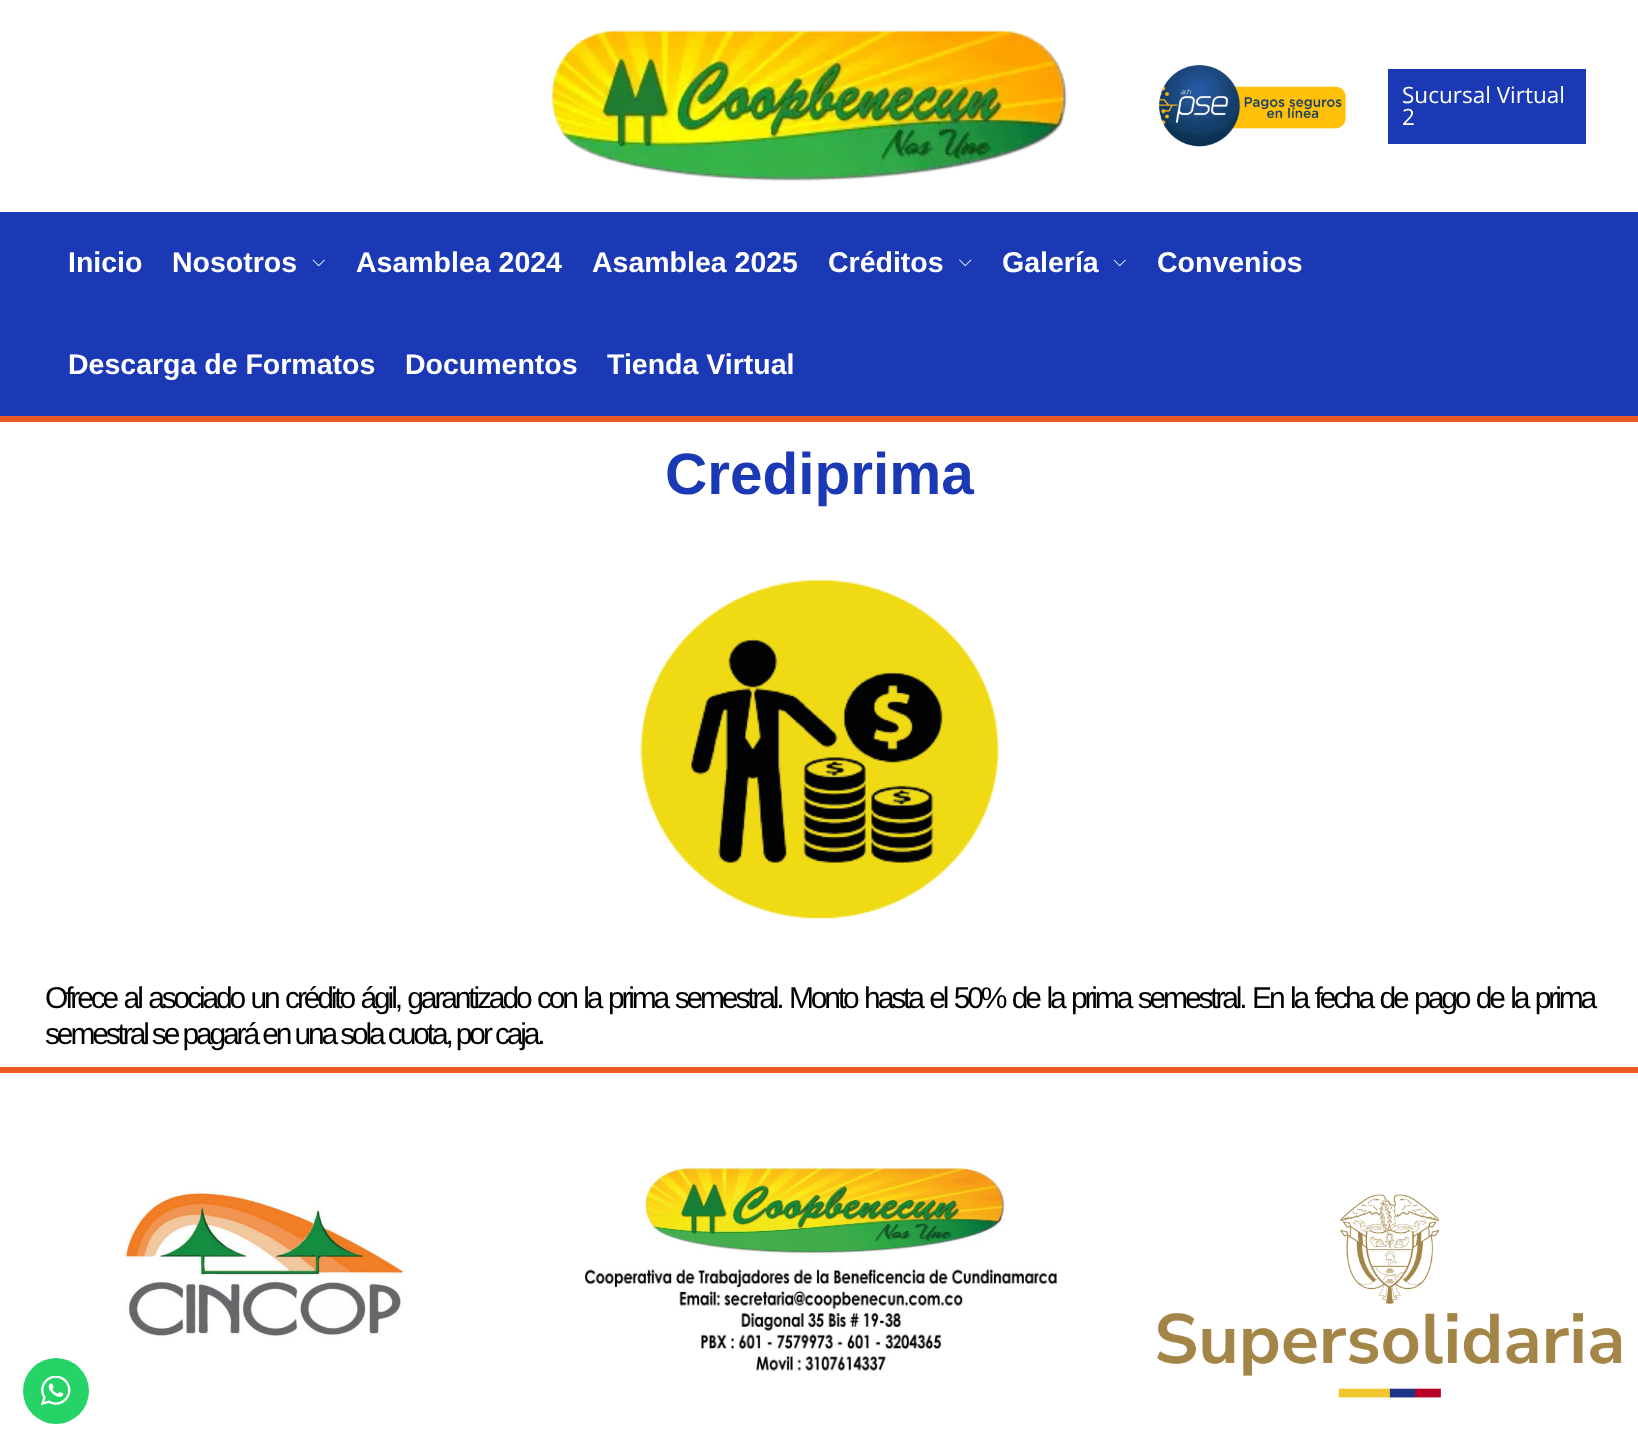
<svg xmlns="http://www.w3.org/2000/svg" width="1638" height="1446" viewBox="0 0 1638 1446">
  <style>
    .t1 { font: 22.5px Open Sans; fill: #fff; }
    .t2 { font: bold 28.5px Liberation Sans; fill: #fff; }
    .t3 { font: bold 58.5px Liberation Sans; fill: #1c39b5; }
    .t4 { font: 30px Liberation Sans; letter-spacing: -3.15px; fill: #000; }
  </style>
  <rect width="100%" height="100%" fill="#fff"/>
  <image x="551" y="30" width="516" height="151" href="images/1.png"/>
  <image x="1158" y="64" width="188" height="83" href="images/2.png"/>
  <rect x="1388" y="69" width="198" height="75" fill="#1c39b5"/>
  <text x="1402" y="103" class="t1">Sucursal Virtual</text>
  <text x="1402" y="125" class="t1">2</text>
  <rect x="0" y="212" width="1638" height="204" fill="#1c39b5"/>
  <rect x="0" y="416" width="1638" height="6" fill="#f15a24"/>
  <text x="68" y="272" class="t2">Inicio</text>
  <text x="172" y="272" class="t2">Nosotros</text>
  <image x="312" y="259" width="13" height="8" href="images/3.png"/>
  <text x="356" y="272" class="t2">Asamblea 2024</text>
  <text x="592" y="272" class="t2">Asamblea 2025</text>
  <text x="828" y="272" class="t2">Créditos</text>
  <image x="959" y="259" width="13" height="8" href="images/4.png"/>
  <text x="1002" y="272" class="t2">Galería</text>
  <image x="1113" y="259" width="13" height="8" href="images/3.png"/>
  <text x="1157" y="272" class="t2">Convenios</text>
  <text x="68" y="374" class="t2">Descarga de Formatos</text>
  <text x="405" y="374" class="t2">Documentos</text>
  <text x="607" y="374" class="t2">Tienda Virtual</text>
  <text x="665" y="494" class="t3">Crediprima</text>
  <image x="640" y="580" width="360" height="339" href="images/5.png"/>
  <text x="45" y="1008" word-spacing="2.3" class="t4">Ofrece al asociado un crédito ágil, garantizado con la prima semestral. Monto hasta el 50% de la prima semestral. En la fecha de pago de la prima</text>
  <text x="45" y="1044" class="t4">semestral se pagará en una sola cuota, por caja.</text>
  <rect x="0" y="1067" width="1638" height="6" fill="#f15a24"/>
  <image x="124" y="1190" width="280" height="147" href="images/6.png"/>
  <image x="584" y="1163" width="474" height="209" href="images/7.png"/>
  <image x="1157" y="1194" width="465" height="204" href="images/8.png"/>
  <circle cx="56" cy="1391" r="33" fill="#25d366"/>
  <image x="41" y="1376" width="30" height="30" href="images/9.png"/>
</svg>
